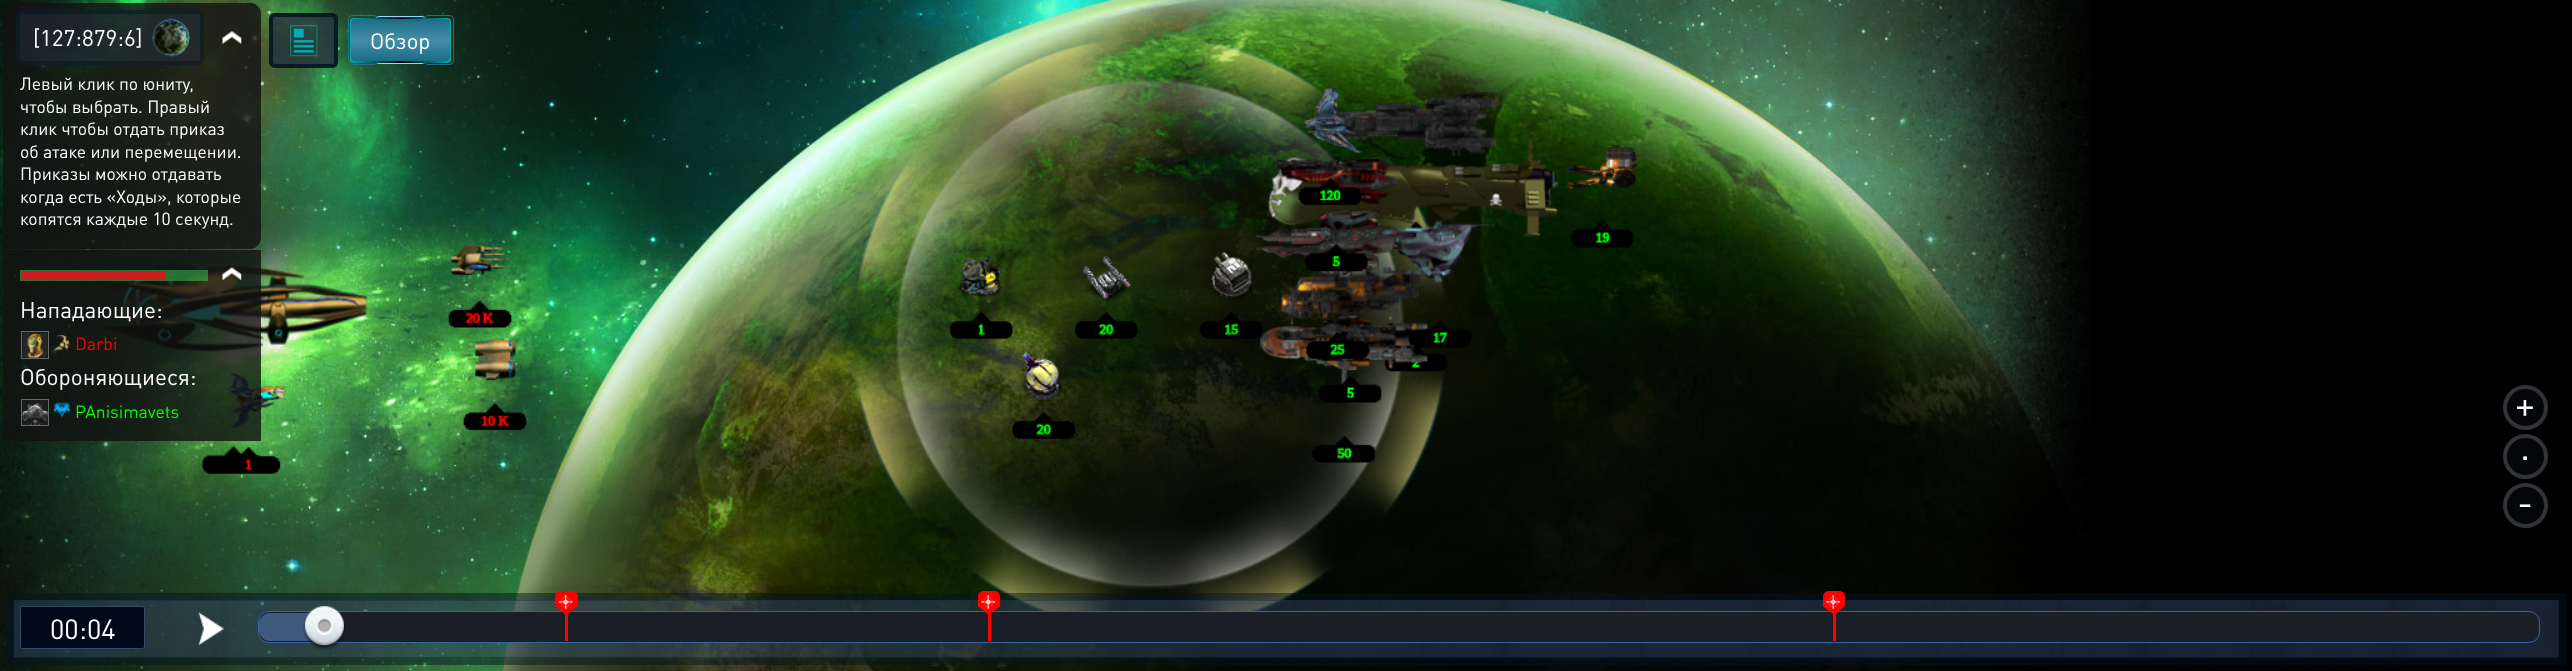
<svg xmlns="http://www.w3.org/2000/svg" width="2572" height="671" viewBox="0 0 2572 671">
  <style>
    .t1 { font: 22.5px DIN; fill: #fff; }
    .t2 { font: 17.5px DIN; fill: #fff; }
    .t3 { font: 17.5px DIN; fill: #f00; }
    .t4 { font: 17.5px DIN; fill: #0f0; }
    .t5 { font: 22px DIN; fill: #fff; }
    .t6 { font: 38px DIN; fill: #fff; }
    .t7 { font: 27.5px DIN; fill: #fff; }
  </style>
  <defs>
    <linearGradient id="g1" gradientUnits="userSpaceOnUse" x1="350" y1="40" x2="451" y2="40"><stop offset="0" stop-color="#02afaf"/><stop offset="0.5" stop-color="#00030a"/><stop offset="1" stop-color="#02afaf"/></linearGradient>
    <linearGradient id="g2" gradientUnits="userSpaceOnUse" x1="401" y1="19" x2="401" y2="61"><stop offset="0" stop-color="#1a6d87"/><stop offset="0.5" stop-color="#458da7"/><stop offset="1" stop-color="#1a6d87"/></linearGradient>
  </defs>
  <rect width="100%" height="100%" fill="#000"/>
  <image x="0" y="0" width="2092" height="671" href="images/1.png"/>
  <path d="M3 3H250C256 3 261 8 261 14V238C261 244 256 249 250 249H3Z" fill="#111111cc"/>
  <rect x="16" y="10" width="188" height="55" rx="6" fill="#252f3b80"/>
  <rect x="18" y="12" width="184" height="51" rx="4" fill="none" stroke="#01131f80" stroke-width="4"/>
  <text x="33" y="46" class="t1">[127:879:6]</text>
  <image x="151" y="18" width="39" height="40" href="images/2.png"/>
  <image x="152" y="18" width="38" height="39" href="images/3.png"/>
  <image x="222" y="31" width="20" height="13" href="images/4.png"/>
  <text x="20" y="90" class="t2">Левый клик по юниту,</text>
  <text x="20" y="113" class="t2">чтобы выбрать. Правый</text>
  <text x="20" y="135" class="t2">клик чтобы отдать приказ</text>
  <text x="20" y="158" class="t2">об атаке или перемещении.</text>
  <text x="20" y="180" class="t2">Приказы можно отдавать</text>
  <text x="20" y="203" class="t2">когда есть «Ходы», которые</text>
  <text x="20" y="225" class="t2">копятся каждые 10 секунд.</text>
  <rect x="3" y="250" width="258" height="191" fill="#111111cc"/>
  <rect x="20" y="270" width="188" height="11" fill="#3acf5180"/>
  <rect x="21" y="271" width="144" height="9" fill="#ce1b1e"/>
  <image x="222" y="267" width="20" height="13" href="images/5.png"/>
  <text x="20" y="318" class="t1">Нападающие:</text>
  <rect x="21.5" y="331.5" width="27" height="27" fill="none" stroke="#6f6f6fed"/>
  <image x="22" y="332" width="26" height="26" href="images/6.png"/>
  <image x="53" y="334" width="17" height="17" href="images/7.png"/>
  <text x="75" y="350" class="t3">Darbi</text>
  <text x="20" y="385" class="t1">Обороняющиеся:</text>
  <rect x="21.5" y="399.5" width="27" height="26" fill="none" stroke="#6f6f6fed"/>
  <image x="22" y="400" width="26" height="25" href="images/8.png"/>
  <image x="53" y="402" width="17" height="16" href="images/9.png"/>
  <text x="75" y="418" class="t4">PAnisimavets</text>
  <rect x="269" y="13" width="69" height="55" rx="6" fill="#252f3bcc"/>
  <image x="290" y="25" width="28" height="32" href="images/10.png"/>
  <rect x="271" y="15" width="65" height="51" rx="4" fill="none" stroke="#01131fcc" stroke-width="4"/>
  <rect x="375.5" y="16.5" width="50" height="47" rx="3.5" fill="none" stroke="#89dcfa"/>
  <rect x="350" y="18" width="101" height="45" rx="4" fill="url(#g1)"/>
  <rect x="348.5" y="15.5" width="29" height="49" rx="3.5" fill="none" stroke="#2e6b80"/>
  <rect x="424.5" y="15.5" width="29" height="49" rx="3.5" fill="none" stroke="#2e6b80"/>
  <rect x="351" y="19" width="99" height="42" rx="4" fill="url(#g2)"/>
  <text x="370" y="49" class="t5">Обзор</text>
  <circle cx="2525.5" cy="407.5" r="22.5" fill="#04060a"/>
  <circle cx="2525.5" cy="407.5" r="20.5" fill="none" stroke="#ebebeb33" stroke-width="4"/>
  <text x="2515" y="418" class="t6">+</text>
  <circle cx="2525.5" cy="456.5" r="22.5" fill="#04060a"/>
  <circle cx="2525.5" cy="456.5" r="20.5" fill="none" stroke="#ebebeb33" stroke-width="4"/>
  <text x="2520" y="460" class="t6">.</text>
  <circle cx="2525.5" cy="505.5" r="22.5" fill="#04060a"/>
  <circle cx="2525.5" cy="505.5" r="20.5" fill="none" stroke="#ebebeb33" stroke-width="4"/>
  <text x="2517" y="516" class="t6">-</text>
  <rect x="10" y="597" width="2552" height="64" fill="none" stroke="#01131f80" stroke-width="8"/>
  <image x="13" y="600" width="2546" height="58" href="images/15.png"/>
  <image x="198" y="612" width="26" height="34" href="images/11.png"/>
  <rect x="258.5" y="611.5" width="2281" height="31" rx="10.5" fill="#1a1f27" stroke="#3465a9"/>
  <rect x="259" y="613" width="65" height="28" rx="11" fill="#40597f"/>
  <image x="303" y="606" width="42" height="44" href="images/12.png"/>
  <rect x="565" y="613" width="3" height="28" fill="#f00"/>
  <path d="M561 591H572C575.5 591 578 593.5 578 597V606H555V597C555 593.5 557.5 591 561 591Z" fill="#f00"/>
  <path d="M555 606H577.5L566 615Z" fill="#f00"/>
  <image x="558" y="594" width="15" height="15" href="images/13.png"/>
  <rect x="988" y="613" width="3" height="28" fill="#f00"/>
  <path d="M984 591H994C997.5 591 1000 593.5 1000 597V606H978V597C978 593.5 980.5 591 984 591Z" fill="#f00"/>
  <path d="M977.5 606H1000L989 615Z" fill="#f00"/>
  <image x="981" y="594" width="14" height="15" href="images/14.png"/>
  <rect x="1833" y="613" width="3" height="28" fill="#f00"/>
  <path d="M1829 591H1839C1842.5 591 1845 593.5 1845 597V606H1823V597C1823 593.5 1825.5 591 1829 591Z" fill="#f00"/>
  <path d="M1822.5 606H1845L1834 615Z" fill="#f00"/>
  <image x="1826" y="594" width="14" height="15" href="images/14.png"/>
  <rect x="20.5" y="606.5" width="124" height="42" rx="2" fill="#000a1b" stroke="#324c69"/>
  <text x="50" y="639" class="t7">00:04</text>
</svg>
